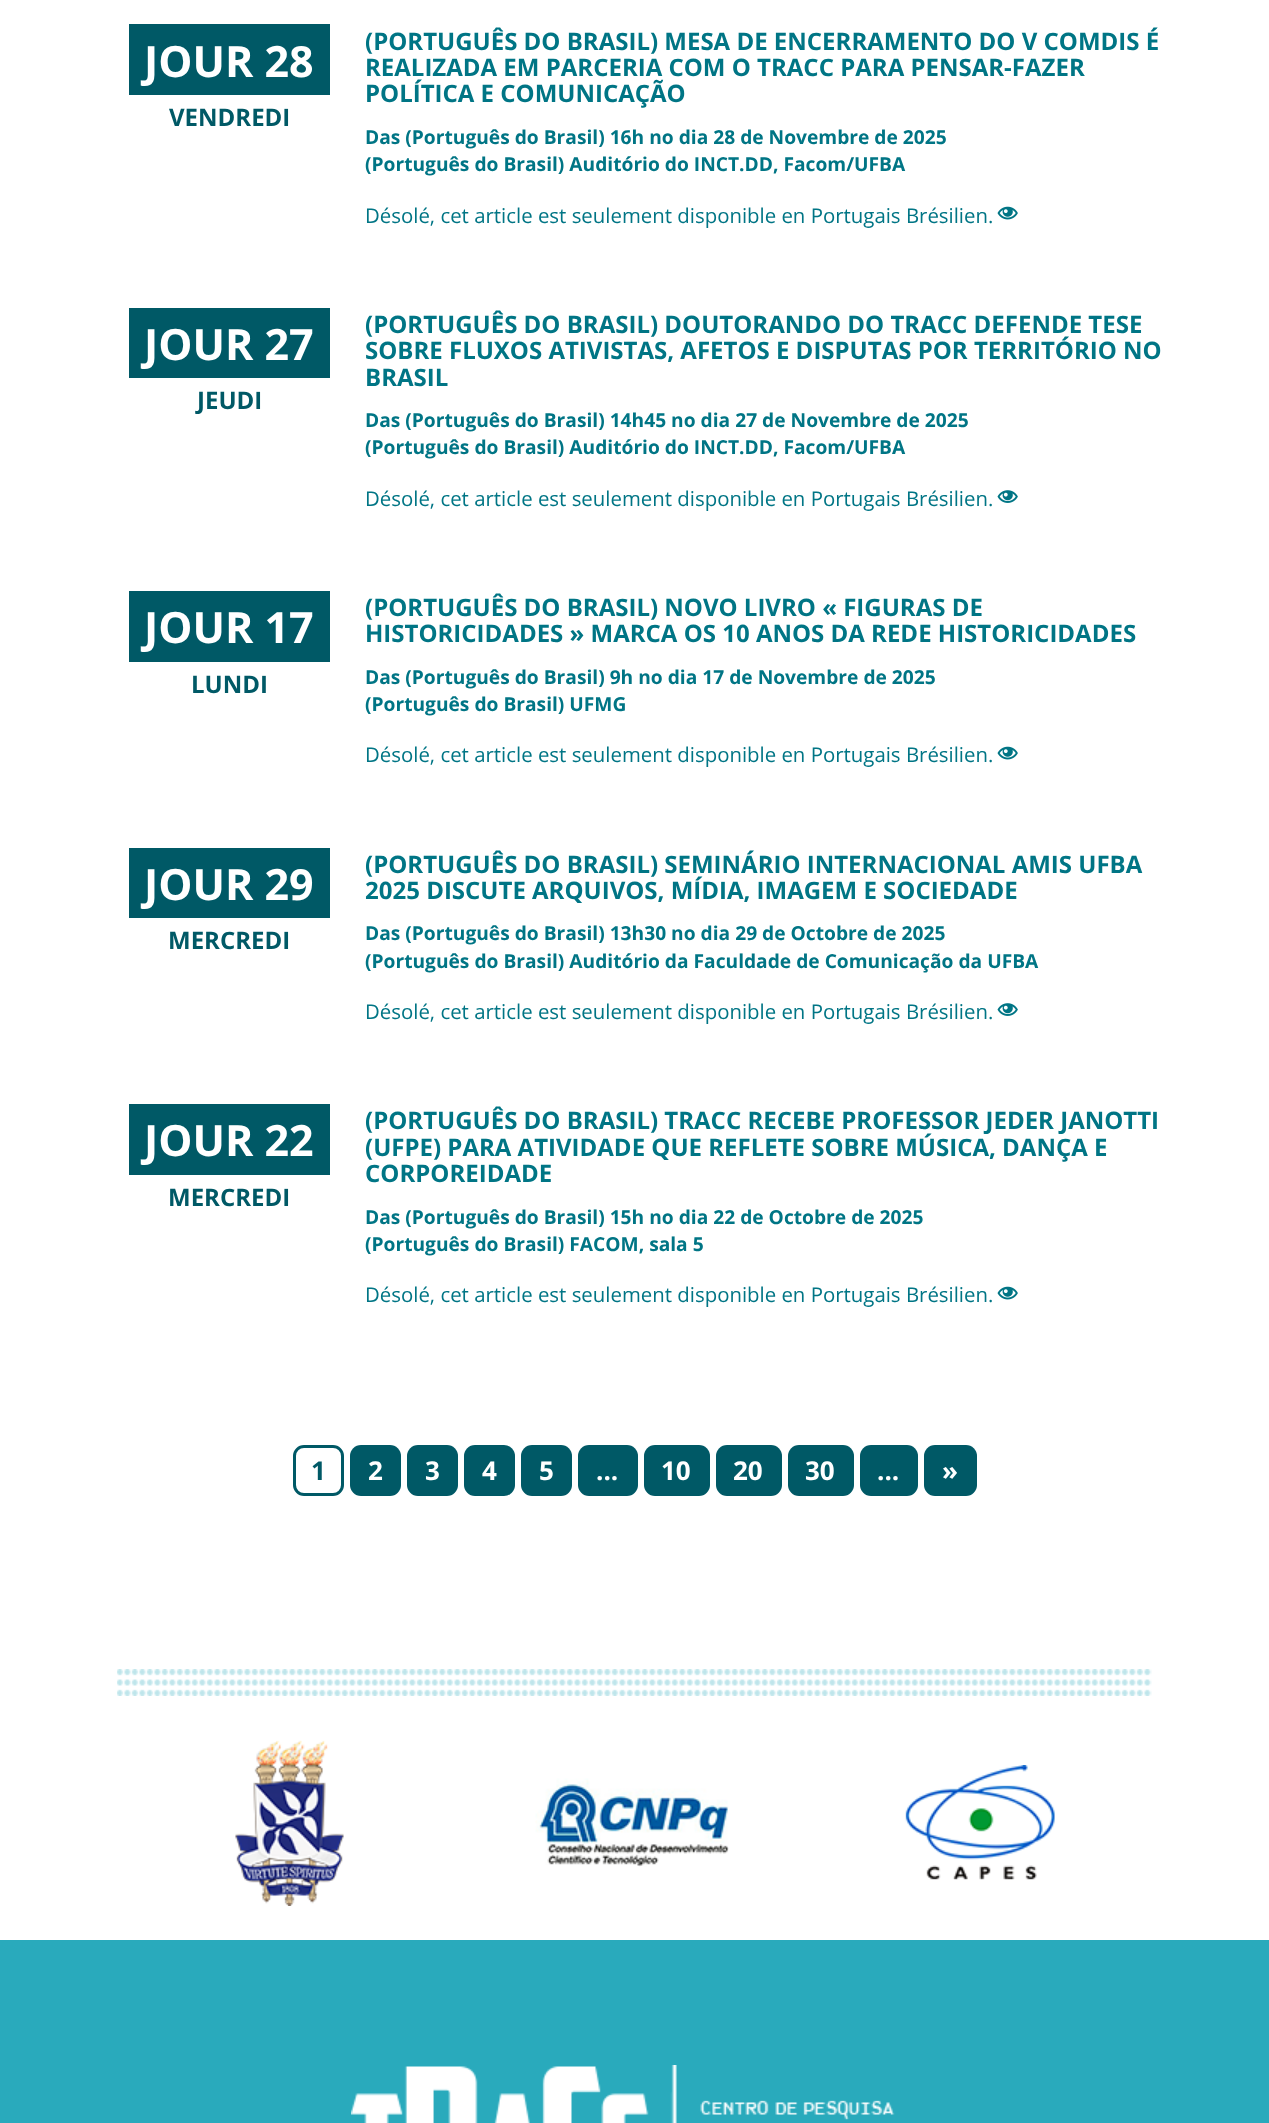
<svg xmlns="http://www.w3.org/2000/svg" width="1269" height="2123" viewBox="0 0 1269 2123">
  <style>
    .t1 { font: bold 43px Open Sans; fill: #fff; }
    .t2 { font: bold 24px Open Sans; fill: #005966; }
    .t3 { font: bold 24px Open Sans; fill: #007585; }
    .t4 { font: bold 19.2px Open Sans; fill: #007585; }
    .t5 { font: 20.4px Open Sans; fill: #007585; }
    .t6 { font: bold 26px Open Sans; fill: #005966; }
    .t7 { font: bold 26px Open Sans; fill: #fff; }
  </style>
  <rect width="100%" height="100%" fill="#fff"/>
  <rect x="129" y="24" width="201" height="71" fill="#005966"/>
  <text x="144" y="77" class="t1">JOUR 28</text>
  <text x="169" y="126" class="t2">VENDREDI</text>
  <text x="365" y="50" class="t3">(PORTUGUÊS DO BRASIL) MESA DE ENCERRAMENTO DO V COMDIS É</text>
  <text x="365" y="76" class="t3">REALIZADA EM PARCERIA COM O TRACC PARA PENSAR-FAZER</text>
  <text x="365" y="102" class="t3">POLÍTICA E COMUNICAÇÃO</text>
  <text x="365" y="144" class="t4">Das (Português do Brasil) 16h no dia 28 de Novembre de 2025</text>
  <text x="365" y="171" class="t4">(Português do Brasil) Auditório do INCT.DD, Facom/UFBA</text>
  <text x="365" y="223" class="t5">Désolé, cet article est seulement disponible en Portugais Brésilien.</text>
  <image x="997" y="206" width="21" height="14" href="images/1.png"/>
  <rect x="129" y="308" width="201" height="70" fill="#005966"/>
  <text x="144" y="360" class="t1">JOUR 27</text>
  <text x="197" y="409" class="t2">JEUDI</text>
  <text x="365" y="333" class="t3">(PORTUGUÊS DO BRASIL) DOUTORANDO DO TRACC DEFENDE TESE</text>
  <text x="365" y="359" class="t3">SOBRE FLUXOS ATIVISTAS, AFETOS E DISPUTAS POR TERRITÓRIO NO</text>
  <text x="365" y="386" class="t3">BRASIL</text>
  <text x="365" y="427" class="t4">Das (Português do Brasil) 14h45 no dia 27 de Novembre de 2025</text>
  <text x="365" y="454" class="t4">(Português do Brasil) Auditório do INCT.DD, Facom/UFBA</text>
  <text x="365" y="506" class="t5">Désolé, cet article est seulement disponible en Portugais Brésilien.</text>
  <image x="997" y="490" width="21" height="13" href="images/2.png"/>
  <rect x="129" y="591" width="201" height="71" fill="#005966"/>
  <text x="144" y="643" class="t1">JOUR 17</text>
  <text x="191" y="693" class="t2">LUNDI</text>
  <text x="365" y="616" class="t3">(PORTUGUÊS DO BRASIL) NOVO LIVRO « FIGURAS DE</text>
  <text x="365" y="642" class="t3">HISTORICIDADES » MARCA OS 10 ANOS DA REDE HISTORICIDADES</text>
  <text x="365" y="684" class="t4">Das (Português do Brasil) 9h no dia 17 de Novembre de 2025</text>
  <text x="365" y="711" class="t4">(Português do Brasil) UFMG</text>
  <text x="365" y="762" class="t5">Désolé, cet article est seulement disponible en Portugais Brésilien.</text>
  <image x="997" y="746" width="21" height="14" href="images/1.png"/>
  <rect x="129" y="848" width="201" height="70" fill="#005966"/>
  <text x="144" y="900" class="t1">JOUR 29</text>
  <text x="168" y="949" class="t2">MERCREDI</text>
  <text x="365" y="873" class="t3">(PORTUGUÊS DO BRASIL) SEMINÁRIO INTERNACIONAL AMIS UFBA</text>
  <text x="365" y="899" class="t3">2025 DISCUTE ARQUIVOS, MÍDIA, IMAGEM E SOCIEDADE</text>
  <text x="365" y="940" class="t4">Das (Português do Brasil) 13h30 no dia 29 de Octobre de 2025</text>
  <text x="365" y="968" class="t4">(Português do Brasil) Auditório da Faculdade de Comunicação da UFBA</text>
  <text x="365" y="1019" class="t5">Désolé, cet article est seulement disponible en Portugais Brésilien.</text>
  <image x="997" y="1003" width="21" height="13" href="images/2.png"/>
  <rect x="129" y="1104" width="201" height="71" fill="#005966"/>
  <text x="144" y="1156" class="t1">JOUR 22</text>
  <text x="168" y="1206" class="t2">MERCREDI</text>
  <text x="365" y="1129" class="t3">(PORTUGUÊS DO BRASIL) TRACC RECEBE PROFESSOR JEDER JANOTTI</text>
  <text x="365" y="1156" class="t3">(UFPE) PARA ATIVIDADE QUE REFLETE SOBRE MÚSICA, DANÇA E</text>
  <text x="365" y="1182" class="t3">CORPOREIDADE</text>
  <text x="365" y="1224" class="t4">Das (Português do Brasil) 15h no dia 22 de Octobre de 2025</text>
  <text x="365" y="1251" class="t4">(Português do Brasil) FACOM, sala 5</text>
  <text x="365" y="1302" class="t5">Désolé, cet article est seulement disponible en Portugais Brésilien.</text>
  <image x="997" y="1286" width="21" height="14" href="images/1.png"/>
  <rect x="294.5" y="1446.5" width="48" height="48" rx="9.5" fill="none" stroke="#005966" stroke-width="3"/>
  <text x="311" y="1480" class="t6">1</text>
  <rect x="350" y="1445" width="51" height="51" rx="11" fill="#005966"/>
  <text x="368" y="1480" class="t7">2</text>
  <rect x="407" y="1445" width="51" height="51" rx="11" fill="#005966"/>
  <text x="425" y="1480" class="t7">3</text>
  <rect x="464" y="1445" width="51" height="51" rx="11" fill="#005966"/>
  <text x="482" y="1480" class="t7">4</text>
  <rect x="521" y="1445" width="51" height="51" rx="11" fill="#005966"/>
  <text x="539" y="1480" class="t7">5</text>
  <rect x="578" y="1445" width="60" height="51" rx="11" fill="#005966"/>
  <text x="596" y="1480" class="t7">...</text>
  <rect x="644" y="1445" width="66" height="51" rx="11" fill="#005966"/>
  <text x="661" y="1480" class="t7">10</text>
  <rect x="716" y="1445" width="66" height="51" rx="11" fill="#005966"/>
  <text x="733" y="1480" class="t7">20</text>
  <rect x="788" y="1445" width="66" height="51" rx="11" fill="#005966"/>
  <text x="805" y="1480" class="t7">30</text>
  <rect x="860" y="1445" width="58" height="51" rx="11" fill="#005966"/>
  <text x="877" y="1480" class="t7">...</text>
  <rect x="924" y="1445" width="53" height="51" rx="11" fill="#005966"/>
  <text x="942" y="1480" class="t7">»</text>
  <image x="117" y="1669" width="1035" height="27" href="images/3.png"/>
  <image x="235" y="1740" width="109" height="166" href="images/4.png"/>
  <image x="535" y="1778" width="194" height="89" href="images/5.png"/>
  <image x="905" y="1765" width="150" height="115" href="images/6.png"/>
  <rect x="0" y="1940" width="1269" height="183" fill="#29aabc"/>
  <image x="351" y="2065" width="544" height="58" href="images/7.png"/>
</svg>
